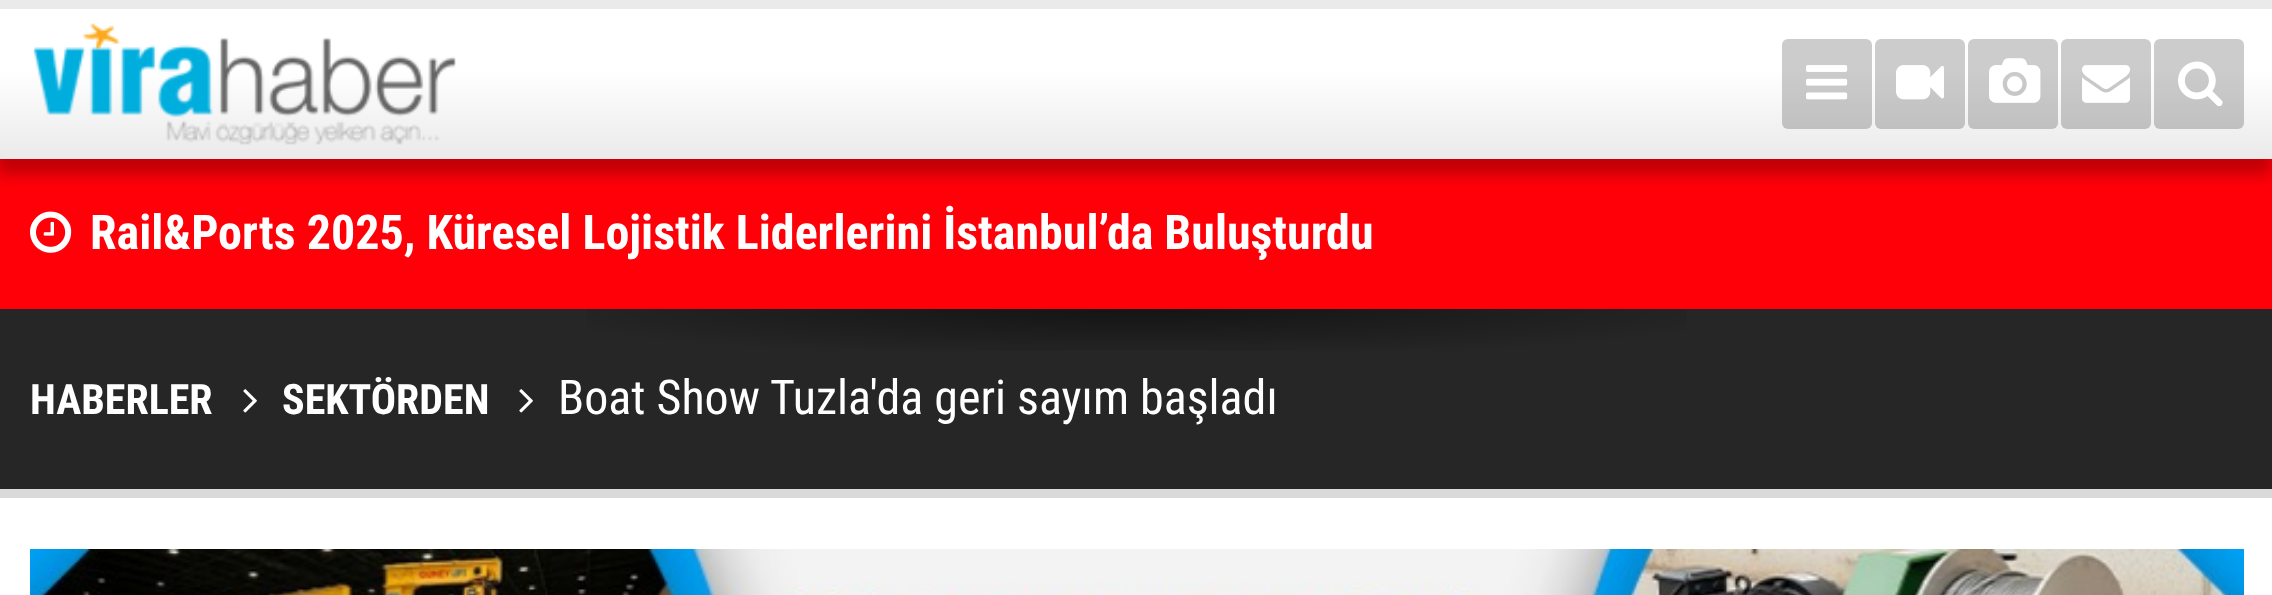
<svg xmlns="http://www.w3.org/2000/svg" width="2272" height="595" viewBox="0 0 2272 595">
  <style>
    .t1 { font: bold 48px Roboto Condensed; fill: #fff; }
    .t2 { font: bold 42px Roboto Condensed; fill: #fff; }
    .t3 { font: 48px Roboto Condensed; fill: #fff; }
  </style>
  <defs>
    <linearGradient id="g1" gradientUnits="userSpaceOnUse" x1="1137" y1="9" x2="1137" y2="159"><stop offset="0.4" stop-color="#fff"/><stop offset="1" stop-color="#eaeaea"/></linearGradient>
    <radialGradient id="g2" gradientUnits="userSpaceOnUse" cx="0" cy="0" r="1" gradientTransform="matrix(1608 0 0 131 1137 306)"><stop offset="0" stop-color="#000" stop-opacity="0.5"/><stop offset="0.4" stop-color="#000" stop-opacity="0"/></radialGradient>
  </defs>
  <rect width="100%" height="100%" fill="#fff"/>
  <rect x="0" y="159" width="2272" height="150" fill="#ff0009"/>
  <rect x="-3" y="15" width="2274" height="159" fill="#00000040" filter="blur(7.5px)"/>
  <rect x="0" y="9" width="2272" height="150" fill="url(#g1)"/>
  <rect x="0" y="0" width="2272" height="9" fill="#eaeaea"/>
  <image x="33" y="23" width="423" height="122" href="images/1.png"/>
  <rect x="1782" y="39" width="90" height="90" rx="6" fill="#00000033"/>
  <image x="1806" y="65" width="42" height="35" href="images/2.png"/>
  <rect x="1875" y="39" width="90" height="90" rx="6" fill="#00000033"/>
  <image x="1896" y="65" width="48" height="35" href="images/3.png"/>
  <rect x="1968" y="39" width="90" height="90" rx="6" fill="#00000033"/>
  <image x="1989" y="58" width="52" height="45" href="images/4.png"/>
  <rect x="2061" y="39" width="90" height="90" rx="6" fill="#00000033"/>
  <image x="2082" y="65" width="48" height="38" href="images/5.png"/>
  <rect x="2154" y="39" width="90" height="90" rx="6" fill="#00000033"/>
  <image x="2178" y="61" width="45" height="46" href="images/6.png"/>
  <image x="30" y="211" width="42" height="42" href="images/7.png"/>
  <text x="90" y="249" class="t1">Rail&amp;Ports 2025, Küresel Lojistik Liderlerini İstanbul’da Buluşturdu</text>
  <rect x="0" y="309" width="2272" height="180" fill="#262626"/>
  <rect x="587" y="309" width="1100" height="42" fill="url(#g2)"/>
  <text x="30" y="414" class="t2">HABERLER</text>
  <image x="243" y="389" width="14" height="24" href="images/8.png"/>
  <text x="282" y="414" class="t2">SEKTÖRDEN</text>
  <image x="519" y="389" width="14" height="24" href="images/8.png"/>
  <text x="558" y="414" class="t3">Boat Show Tuzla'da geri sayım başladı</text>
  <rect x="0" y="489" width="2272" height="9" fill="#d9d9d9"/>
  <image x="30" y="549" width="2214" height="46" href="images/9.png"/>
</svg>
